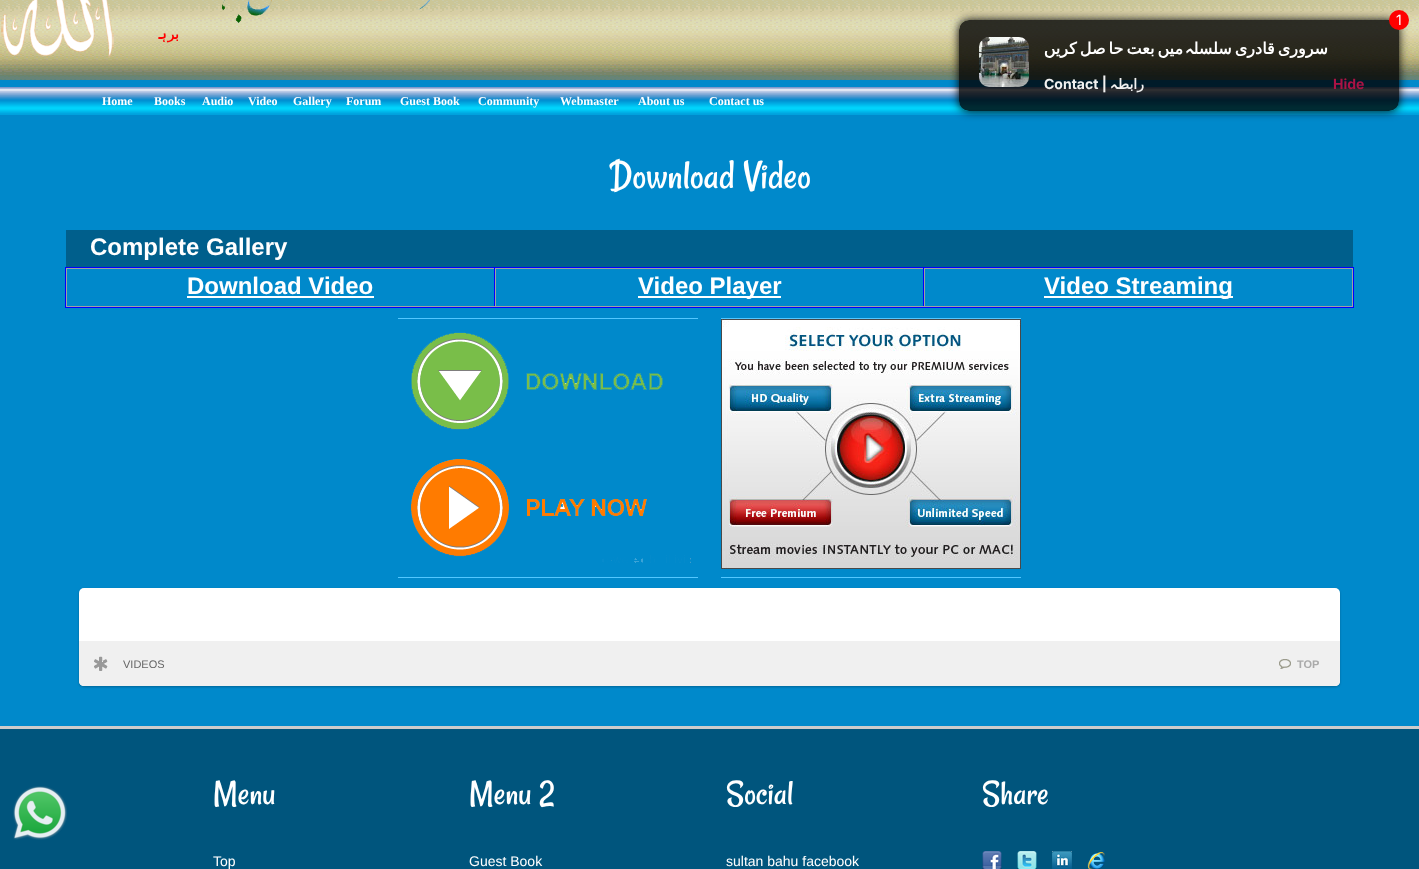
<svg xmlns="http://www.w3.org/2000/svg" width="1419" height="869" viewBox="0 0 1419 869">
  <style>
    .t1 { font: 14px Inter; fill: #fff; }
    .t2 { font: bold 16px DejaVu Sans; direction: rtl; fill: #fff; }
    .t3 { font: bold 16px Cascadia Code; direction: rtl; fill: #fff; }
    .t4 { font: bold 14px Inter; fill: #f1f1f1; }
    .t5 { font: bold 14px Cascadia Code; direction: rtl; fill: #f1f1f1; }
    .t6 { font: bold 14px DejaVu Sans; direction: rtl; fill: #f1f1f1; }
    .t7 { font: bold 14px Inter; fill: #aa1345; }
    .t8 { font: bold 14px Cascadia Code; direction: rtl; fill: #f00; }
    .t9 { font: bold 14px DejaVu Sans; direction: rtl; fill: #f00; }
    .t10 { font: bold 12px Liberation Serif; fill: #fff; }
    .t11 { font: 42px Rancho; fill: #fff; }
    .t12 { font: bold 24px Liberation Sans; fill: #fff; }
    .t13 { font: 11px Liberation Sans; fill: #666; }
    .t14 { font: bold 11px Liberation Sans; fill: #aaa; }
    .t15 { font: 36px Rancho; fill: #fff; }
    .t16 { font: 14px Liberation Sans; fill: #fff; }
  </style>
  <defs>
    <clipPath id="clip1"><path d="M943 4H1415V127H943ZM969 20H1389C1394.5 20 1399 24.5 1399 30V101C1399 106.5 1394.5 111 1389 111H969C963.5 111 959 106.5 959 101V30C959 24.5 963.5 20 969 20Z" clip-rule="evenodd"/></clipPath>
  </defs>
  <rect width="100%" height="100%" fill="#0089cb"/>
  <image x="0" y="0" width="1419" height="115" href="images/2.png"/>
  <g clip-path="url(#clip1)">
    <rect x="959" y="20" width="440" height="91" rx="10" fill="#000" filter="blur(5px)"/>
  </g>
  <rect x="959" y="20" width="440" height="91" rx="10" fill="#000000cc"/>
  <circle cx="1399" cy="20" r="10" fill="#f00"/>
  <text x="1396" y="25" class="t1">1</text>
  <image x="979" y="37" width="50" height="50" href="images/1.png"/>
  <text x="1183" y="54" word-spacing="-2" class="t2">میں بعت حا صل کریں</text>
  <text x="1194" y="54" class="t3">‍ہ</text>
  <text x="1328" y="54" word-spacing="-2" class="t2">سروری قادری سلسل‍</text>
  <text x="1044" y="89" class="t4">Contact |</text>
  <text x="1118" y="89" class="t5">‍ہ</text>
  <text x="1144" y="89" class="t6">رابط‍</text>
  <text x="1333" y="89" class="t7">Hide</text>
  <image x="1" y="0" width="113" height="58" href="images/3.png"/>
  <image x="222" y="0" width="208" height="23" href="images/4.png"/>
  <text x="167" y="39" class="t8">ہ‍</text>
  <text x="179" y="39" class="t9">بر</text>
  <text x="102" y="105" class="t10">Home</text>
  <text x="154" y="105" class="t10">Books</text>
  <text x="202" y="105" class="t10">Audio</text>
  <text x="248" y="105" class="t10">Video</text>
  <text x="293" y="105" class="t10">Gallery</text>
  <text x="346" y="105" class="t10">Forum</text>
  <text x="400" y="105" class="t10">Guest Book</text>
  <text x="478" y="105" class="t10">Community</text>
  <text x="560" y="105" class="t10">Webmaster</text>
  <text x="638" y="105" class="t10">About us</text>
  <text x="709" y="105" class="t10">Contact us</text>
  <text x="609" y="188" class="t11">Download Video</text>
  <rect x="66" y="230" width="1287" height="37" fill="#005f8c"/>
  <text x="90" y="255" class="t12">Complete Gallery</text>
  <rect x="65.5" y="267.5" width="1288" height="40" fill="none" stroke="#00f"/>
  <rect x="66" y="268" width="858" height="1" fill="#a1a1a1"/>
  <rect x="494" y="268" width="1" height="39" fill="#00f"/>
  <rect x="66" y="306" width="429" height="1" fill="#a1a1a1"/>
  <rect x="66" y="268" width="1" height="39" fill="#a1a1a1"/>
  <text x="187" y="294" class="t12">Download Video</text>
  <rect x="187" y="296" width="187" height="2" fill="#fff"/>
  <rect x="923" y="268" width="1" height="39" fill="#00f"/>
  <rect x="495" y="306" width="429" height="1" fill="#a1a1a1"/>
  <rect x="495" y="268" width="1" height="39" fill="#a1a1a1"/>
  <rect x="638" y="296" width="143" height="2" fill="#fff"/>
  <text x="638" y="294" class="t12">Video Player</text>
  <rect x="924.5" y="268.5" width="428" height="38" fill="none" stroke="#a1a1a1"/>
  <rect x="1044" y="296" width="189" height="2" fill="#fff"/>
  <text x="1044" y="294" class="t12">Video Streaming</text>
  <rect x="398" y="318" width="300" height="1" fill="#53c7ff"/>
  <rect x="398" y="577" width="300" height="1" fill="#53c7ff"/>
  <image x="411" y="332" width="280" height="231" href="images/5.png"/>
  <rect x="721" y="318" width="300" height="1" fill="#53c7ff"/>
  <rect x="721" y="577" width="300" height="1" fill="#53c7ff"/>
  <image x="721" y="319" width="300" height="250" href="images/6.png"/>
  <rect x="79" y="589" width="1261" height="98" rx="5" fill="#00000040" filter="blur(1px)"/>
  <rect x="79" y="588" width="1261" height="98" rx="5" fill="#fff"/>
  <path d="M79 641H1340V681C1340 684 1338 686 1335 686H84C81 686 79 684 79 681Z" fill="#f0f0f0"/>
  <image x="94" y="656" width="14" height="15" href="images/7.png"/>
  <text x="123" y="668" class="t13">VIDEOS</text>
  <image x="1279" y="659" width="12" height="10" href="images/8.png"/>
  <text x="1297" y="668" class="t14">TOP</text>
  <rect x="0" y="729" width="1419" height="140" fill="#00557d"/>
  <image x="13" y="786" width="54" height="54" href="images/9.png"/>
  <rect x="0" y="726" width="1419" height="3" fill="#ccc"/>
  <text x="213" y="804" class="t15">Menu</text>
  <text x="213" y="866" class="t16">Top</text>
  <text x="469" y="804" class="t15">Menu 2</text>
  <text x="469" y="866" class="t16">Guest Book</text>
  <text x="726" y="804" class="t15">Social</text>
  <text x="726" y="866" class="t16">sultan bahu facebook</text>
  <text x="982" y="804" class="t15">Share</text>
  <image x="982" y="851" width="20" height="18" href="images/10.png"/>
  <image x="1017" y="851" width="20" height="18" href="images/11.png"/>
  <image x="1052" y="851" width="20" height="18" href="images/12.png"/>
  <image x="1087" y="852" width="18" height="17" href="images/13.png"/>
</svg>
